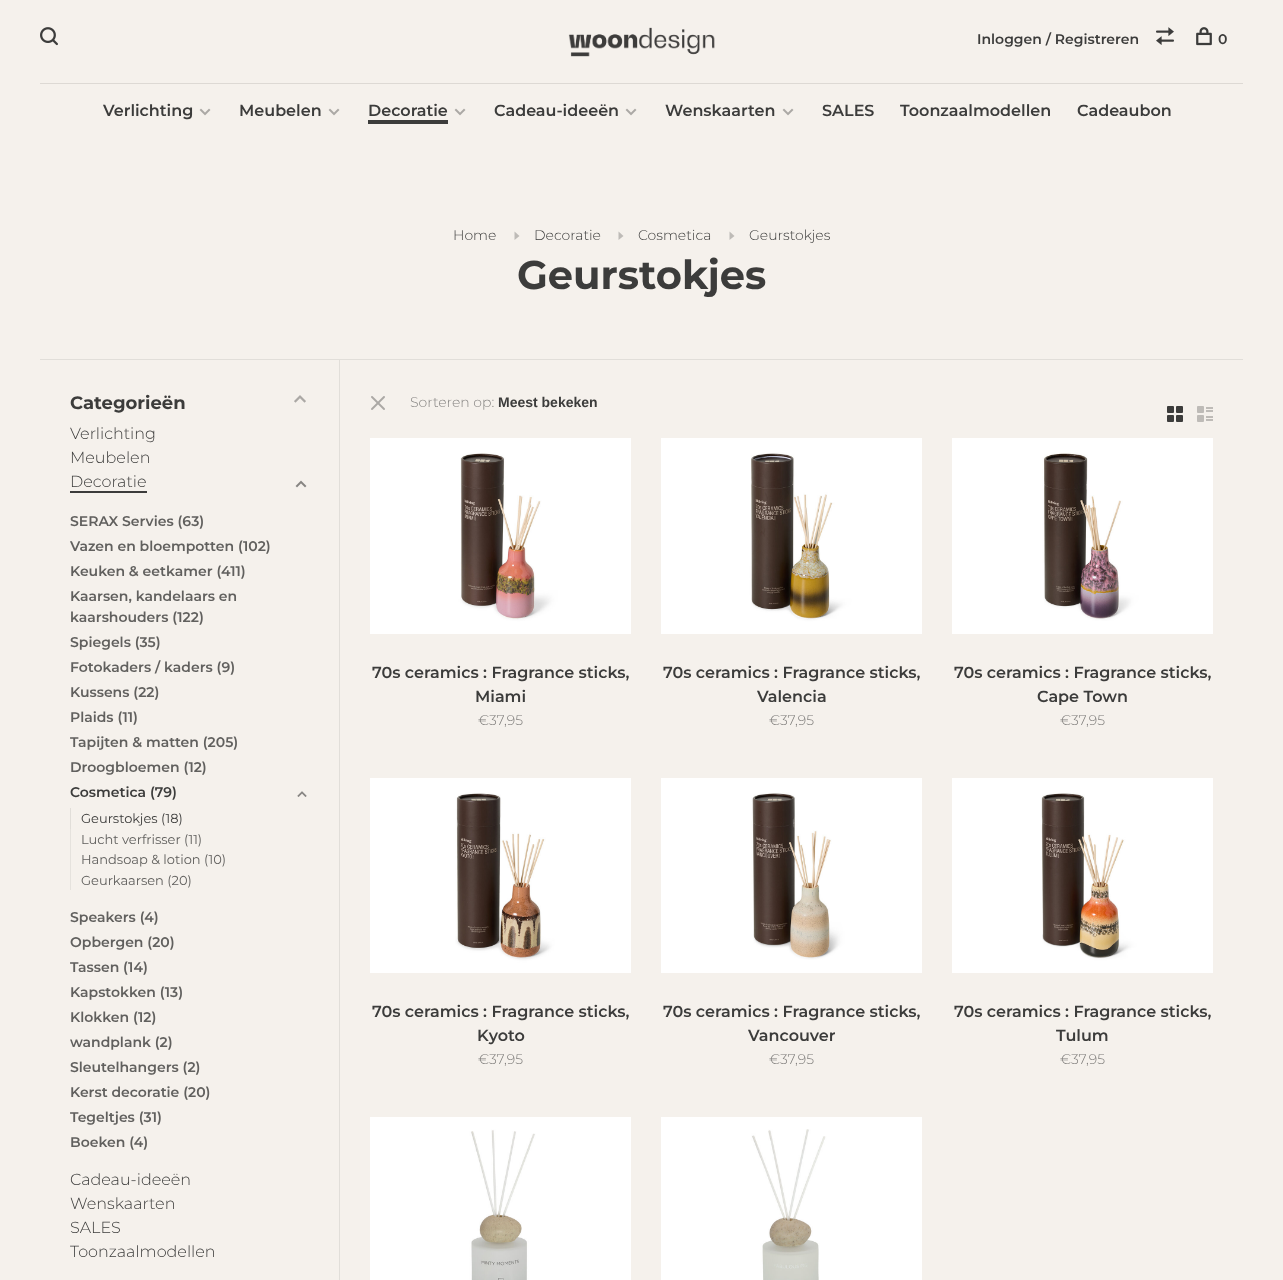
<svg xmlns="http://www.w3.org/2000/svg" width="1283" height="1280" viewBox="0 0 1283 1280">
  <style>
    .t1 { font: 600 14px Montserrat; fill: #3c3c3b; }
    .t2 { font: 600 16px Montserrat; fill: #3c3c3b; }
    .t3 { font: 300 14px Montserrat; fill: #3c3c3b; }
    .t4 { font: bold 40px Montserrat; fill: #3c3c3b; }
    .t5 { font: bold 18px Montserrat; fill: #3c3c3b; }
    .t6 { font: 300 16px Montserrat; fill: #3c3c3b; }
    .t7 { font: 600 14px Montserrat; fill: #61605e; }
    .t8 { font: 13px Montserrat; fill: #3c3c3b; }
    .t9 { font: 13px Montserrat; fill: #61605e; }
    .t10 { font: 300 14px Montserrat; fill: #868482; }
    .t11 { font: bold 14px Liberation Sans; fill: #3c3c3b; }
    .t12 { font: 300 14px Montserrat; fill: #7d7b79; }
  </style>
  <rect width="100%" height="100%" fill="#f5f1ec"/>
  <image x="40" y="27" width="18" height="19" href="images/1.png"/>
  <image x="568" y="27" width="147" height="30" href="images/2.png"/>
  <text x="977" y="44" class="t1">Inloggen / Registreren</text>
  <image x="1156" y="27" width="18" height="18" href="images/3.png"/>
  <image x="1196" y="27" width="16" height="19" href="images/4.png"/>
  <text x="1218" y="44" class="t1">0</text>
  <rect x="40" y="83" width="1203" height="1" fill="#ddd9d4"/>
  <text x="103" y="116" class="t2">Verlichting</text>
  <image x="199" y="108" width="12" height="8" href="images/5.png"/>
  <text x="239" y="116" class="t2">Meubelen</text>
  <image x="328" y="108" width="12" height="8" href="images/5.png"/>
  <text x="368" y="116" class="t2">Decoratie</text>
  <rect x="368" y="120" width="80" height="4" fill="#3c3c3b"/>
  <image x="454" y="108" width="12" height="8" href="images/5.png"/>
  <text x="494" y="116" class="t2">Cadeau-ideeën</text>
  <image x="625" y="108" width="12" height="8" href="images/5.png"/>
  <text x="665" y="116" class="t2">Wenskaarten</text>
  <image x="782" y="108" width="12" height="8" href="images/5.png"/>
  <text x="822" y="116" class="t2">SALES</text>
  <text x="900" y="116" class="t2">Toonzaalmodellen</text>
  <text x="1077" y="116" class="t2">Cadeaubon</text>
  <text x="453" y="240" class="t3">Home</text>
  <path d="M514.5 240L519.5 236L514.5 231.5Z" fill="#bebbb7"/>
  <text x="534" y="240" class="t3">Decoratie</text>
  <path d="M618.5 240L623.5 236L618.5 231.5Z" fill="#bebbb7"/>
  <text x="638" y="240" class="t3">Cosmetica</text>
  <path d="M729.5 240L734.5 236L729.5 231.5Z" fill="#bebbb7"/>
  <text x="749" y="240" class="t3">Geurstokjes</text>
  <text x="517" y="289" class="t4">Geurstokjes</text>
  <rect x="40" y="359" width="1203" height="1" fill="#e1ded9"/>
  <rect x="339" y="360" width="1" height="920" fill="#e1ded9"/>
  <text x="70" y="409" class="t5">Categorieën</text>
  <image x="294" y="395" width="12" height="8" href="images/6.png"/>
  <text x="70" y="439" class="t6">Verlichting</text>
  <text x="70" y="463" class="t6">Meubelen</text>
  <text x="70" y="487" class="t6">Decoratie</text>
  <rect x="70" y="491" width="77" height="2" fill="#3c3c3b"/>
  <image x="295" y="480" width="12" height="8" href="images/7.png"/>
  <text x="70" y="526" class="t7">SERAX Servies (63)</text>
  <text x="70" y="551" class="t7">Vazen en bloempotten (102)</text>
  <text x="70" y="576" class="t7">Keuken &amp; eetkamer (411)</text>
  <text x="70" y="601" class="t7">Kaarsen, kandelaars en</text>
  <text x="70" y="622" class="t7">kaarshouders (122)</text>
  <text x="70" y="647" class="t7">Spiegels (35)</text>
  <text x="70" y="672" class="t7">Fotokaders / kaders (9)</text>
  <text x="70" y="697" class="t7">Kussens (22)</text>
  <text x="70" y="722" class="t7">Plaids (11)</text>
  <text x="70" y="747" class="t7">Tapijten &amp; matten (205)</text>
  <text x="70" y="772" class="t7">Droogbloemen (12)</text>
  <text x="70" y="797" class="t1">Cosmetica (79)</text>
  <image x="297" y="791" width="10" height="6" href="images/8.png"/>
  <rect x="70" y="808" width="1" height="21" fill="#e1ded9"/>
  <text x="81" y="823" class="t8">Geurstokjes (18)</text>
  <rect x="70" y="829" width="1" height="61" fill="#e5e2dd"/>
  <text x="81" y="844" class="t9">Lucht verfrisser (11)</text>
  <text x="81" y="864" class="t9">Handsoap &amp; lotion (10)</text>
  <text x="81" y="885" class="t9">Geurkaarsen (20)</text>
  <text x="70" y="922" class="t7">Speakers (4)</text>
  <text x="70" y="947" class="t7">Opbergen (20)</text>
  <text x="70" y="972" class="t7">Tassen (14)</text>
  <text x="70" y="997" class="t7">Kapstokken (13)</text>
  <text x="70" y="1022" class="t7">Klokken (12)</text>
  <text x="70" y="1047" class="t7">wandplank (2)</text>
  <text x="70" y="1072" class="t7">Sleutelhangers (2)</text>
  <text x="70" y="1097" class="t7">Kerst decoratie (20)</text>
  <text x="70" y="1122" class="t7">Tegeltjes (31)</text>
  <text x="70" y="1147" class="t7">Boeken (4)</text>
  <text x="70" y="1185" class="t6">Cadeau-ideeën</text>
  <text x="70" y="1209" class="t6">Wenskaarten</text>
  <text x="70" y="1233" class="t6">SALES</text>
  <text x="70" y="1257" class="t6">Toonzaalmodellen</text>
  <image x="371" y="396" width="14" height="14" href="images/9.png"/>
  <text x="410" y="407" class="t10">Sorteren op:</text>
  <text x="498" y="407" class="t11">Meest bekeken</text>
  <image x="1167" y="406" width="16" height="16" href="images/10.png"/>
  <image x="1197" y="406" width="16" height="16" href="images/11.png"/>
  <image x="370" y="438" width="261" height="196" href="images/12.png"/>
  <text x="372" y="678" class="t2">70s ceramics : Fragrance sticks,</text>
  <text x="475" y="702" class="t2">Miami</text>
  <text x="478" y="725" class="t12">€37,95</text>
  <image x="661" y="438" width="261" height="196" href="images/13.png"/>
  <text x="663" y="678" class="t2">70s ceramics : Fragrance sticks,</text>
  <text x="757" y="702" class="t2">Valencia</text>
  <text x="769" y="725" class="t12">€37,95</text>
  <image x="952" y="438" width="261" height="196" href="images/14.png"/>
  <text x="954" y="678" class="t2">70s ceramics : Fragrance sticks,</text>
  <text x="1037" y="702" class="t2">Cape Town</text>
  <text x="1060" y="725" class="t12">€37,95</text>
  <image x="370" y="778" width="261" height="195" href="images/15.png"/>
  <text x="372" y="1017" class="t2">70s ceramics : Fragrance sticks,</text>
  <text x="477" y="1041" class="t2">Kyoto</text>
  <text x="478" y="1064" class="t12">€37,95</text>
  <image x="661" y="778" width="261" height="195" href="images/16.png"/>
  <text x="663" y="1017" class="t2">70s ceramics : Fragrance sticks,</text>
  <text x="748" y="1041" class="t2">Vancouver</text>
  <text x="769" y="1064" class="t12">€37,95</text>
  <image x="952" y="778" width="261" height="195" href="images/17.png"/>
  <text x="954" y="1017" class="t2">70s ceramics : Fragrance sticks,</text>
  <text x="1056" y="1041" class="t2">Tulum</text>
  <text x="1060" y="1064" class="t12">€37,95</text>
  <image x="370" y="1117" width="261" height="163" href="images/18.png"/>
  <image x="661" y="1117" width="261" height="163" href="images/19.png"/>
</svg>
